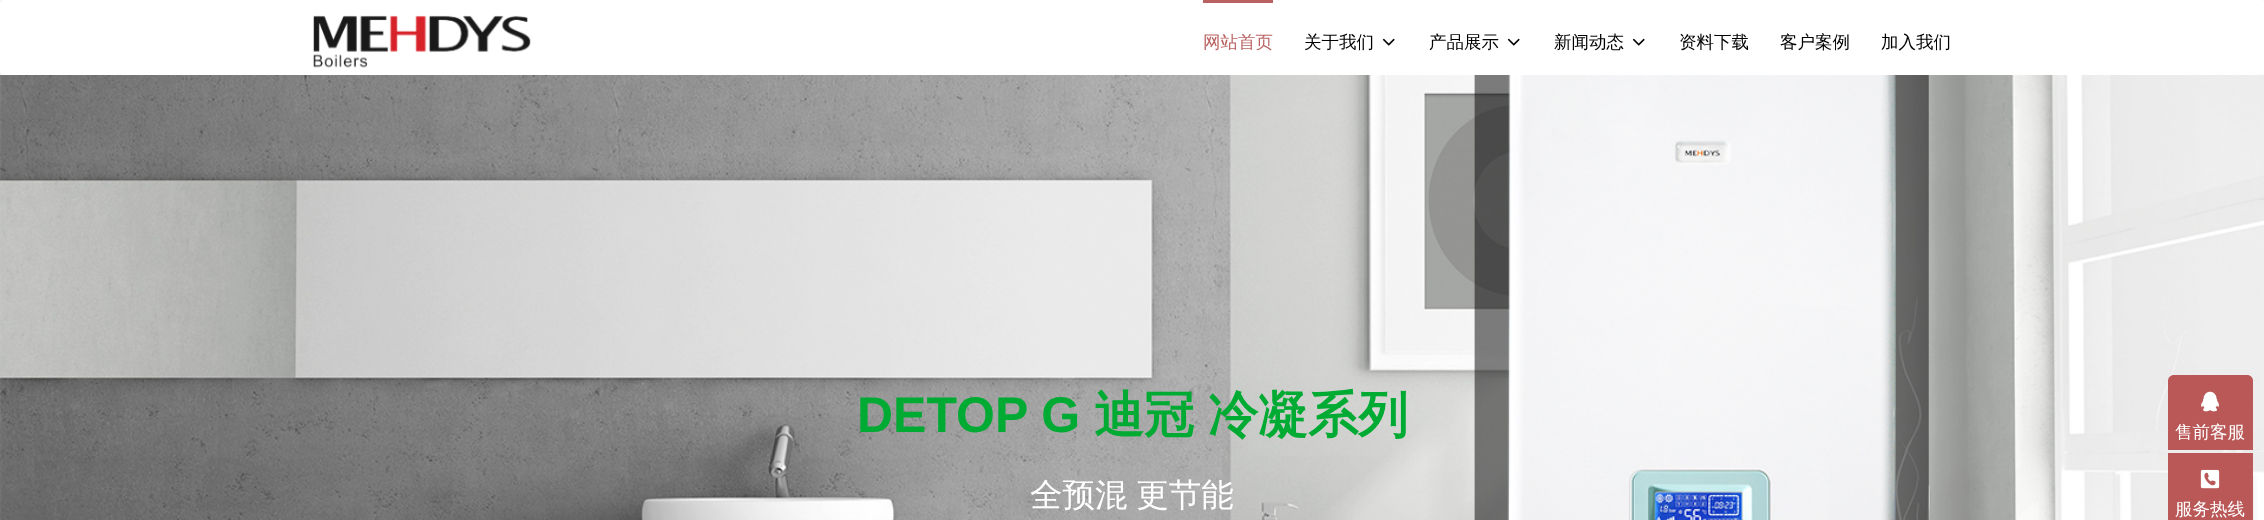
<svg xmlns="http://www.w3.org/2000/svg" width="2264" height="520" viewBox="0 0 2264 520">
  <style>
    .t1 { font: 500 17.5px WenQuanYi Zen Hei; fill: #ba6262; }
    .t2 { font: 500 17.5px WenQuanYi Zen Hei; fill: #000; }
    .t3 { font: bold 50px Liberation Sans; fill: #00ab33; }
    .t4 { font: bold 50px WenQuanYi Zen Hei; fill: #00ab33; }
    .t5 { font: 500 32.5px WenQuanYi Zen Hei; fill: #fff; }
    .t6 { font: 500 17.5px WenQuanYi Zen Hei; fill: #fff; }
  </style>
  <rect width="100%" height="100%" fill="#f2f2f2"/>
  <rect x="0" y="0" width="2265" height="75" rx="4" fill="#fff"/>
  <image x="313" y="15" width="218" height="53" href="images/1.png"/>
  <rect x="1203" y="0" width="70" height="3" fill="#ba6262"/>
  <text x="1203" y="48" class="t1">网站首页</text>
  <text x="1304" y="48" class="t2">关于我们</text>
  <image x="1382" y="38" width="13" height="8" href="images/2.png"/>
  <text x="1429" y="48" class="t2">产品展示</text>
  <image x="1507" y="38" width="13" height="8" href="images/2.png"/>
  <text x="1554" y="48" class="t2">新闻动态</text>
  <image x="1632" y="38" width="13" height="8" href="images/2.png"/>
  <text x="1679" y="48" class="t2">资料下载</text>
  <text x="1780" y="48" class="t2">客户案例</text>
  <text x="1881" y="48" class="t2">加入我们</text>
  <image x="0" y="75" width="2264" height="445" href="images/3.png"/>
  <text x="857" y="432" class="t3">DETOP G</text>
  <text x="1094" y="432" class="t4">迪冠</text>
  <text x="1208" y="432" class="t4">冷凝系列</text>
  <text x="1030" y="506" word-spacing="-1" class="t5">全预混 更节能</text>
  <path d="M2174 375H2247C2250.5 375 2253 377.5 2253 381V450H2168V381C2168 377.5 2170.5 375 2174 375Z" fill="#ba5858"/>
  <image x="2201" y="391" width="18" height="21" href="images/4.png"/>
  <text x="2175" y="438" class="t6">售前客服</text>
  <rect x="2168" y="453" width="85" height="67" fill="#ba5858"/>
  <image x="2200" y="469" width="20" height="20" href="images/5.png"/>
  <text x="2175" y="515" class="t6">服务热线</text>
</svg>
